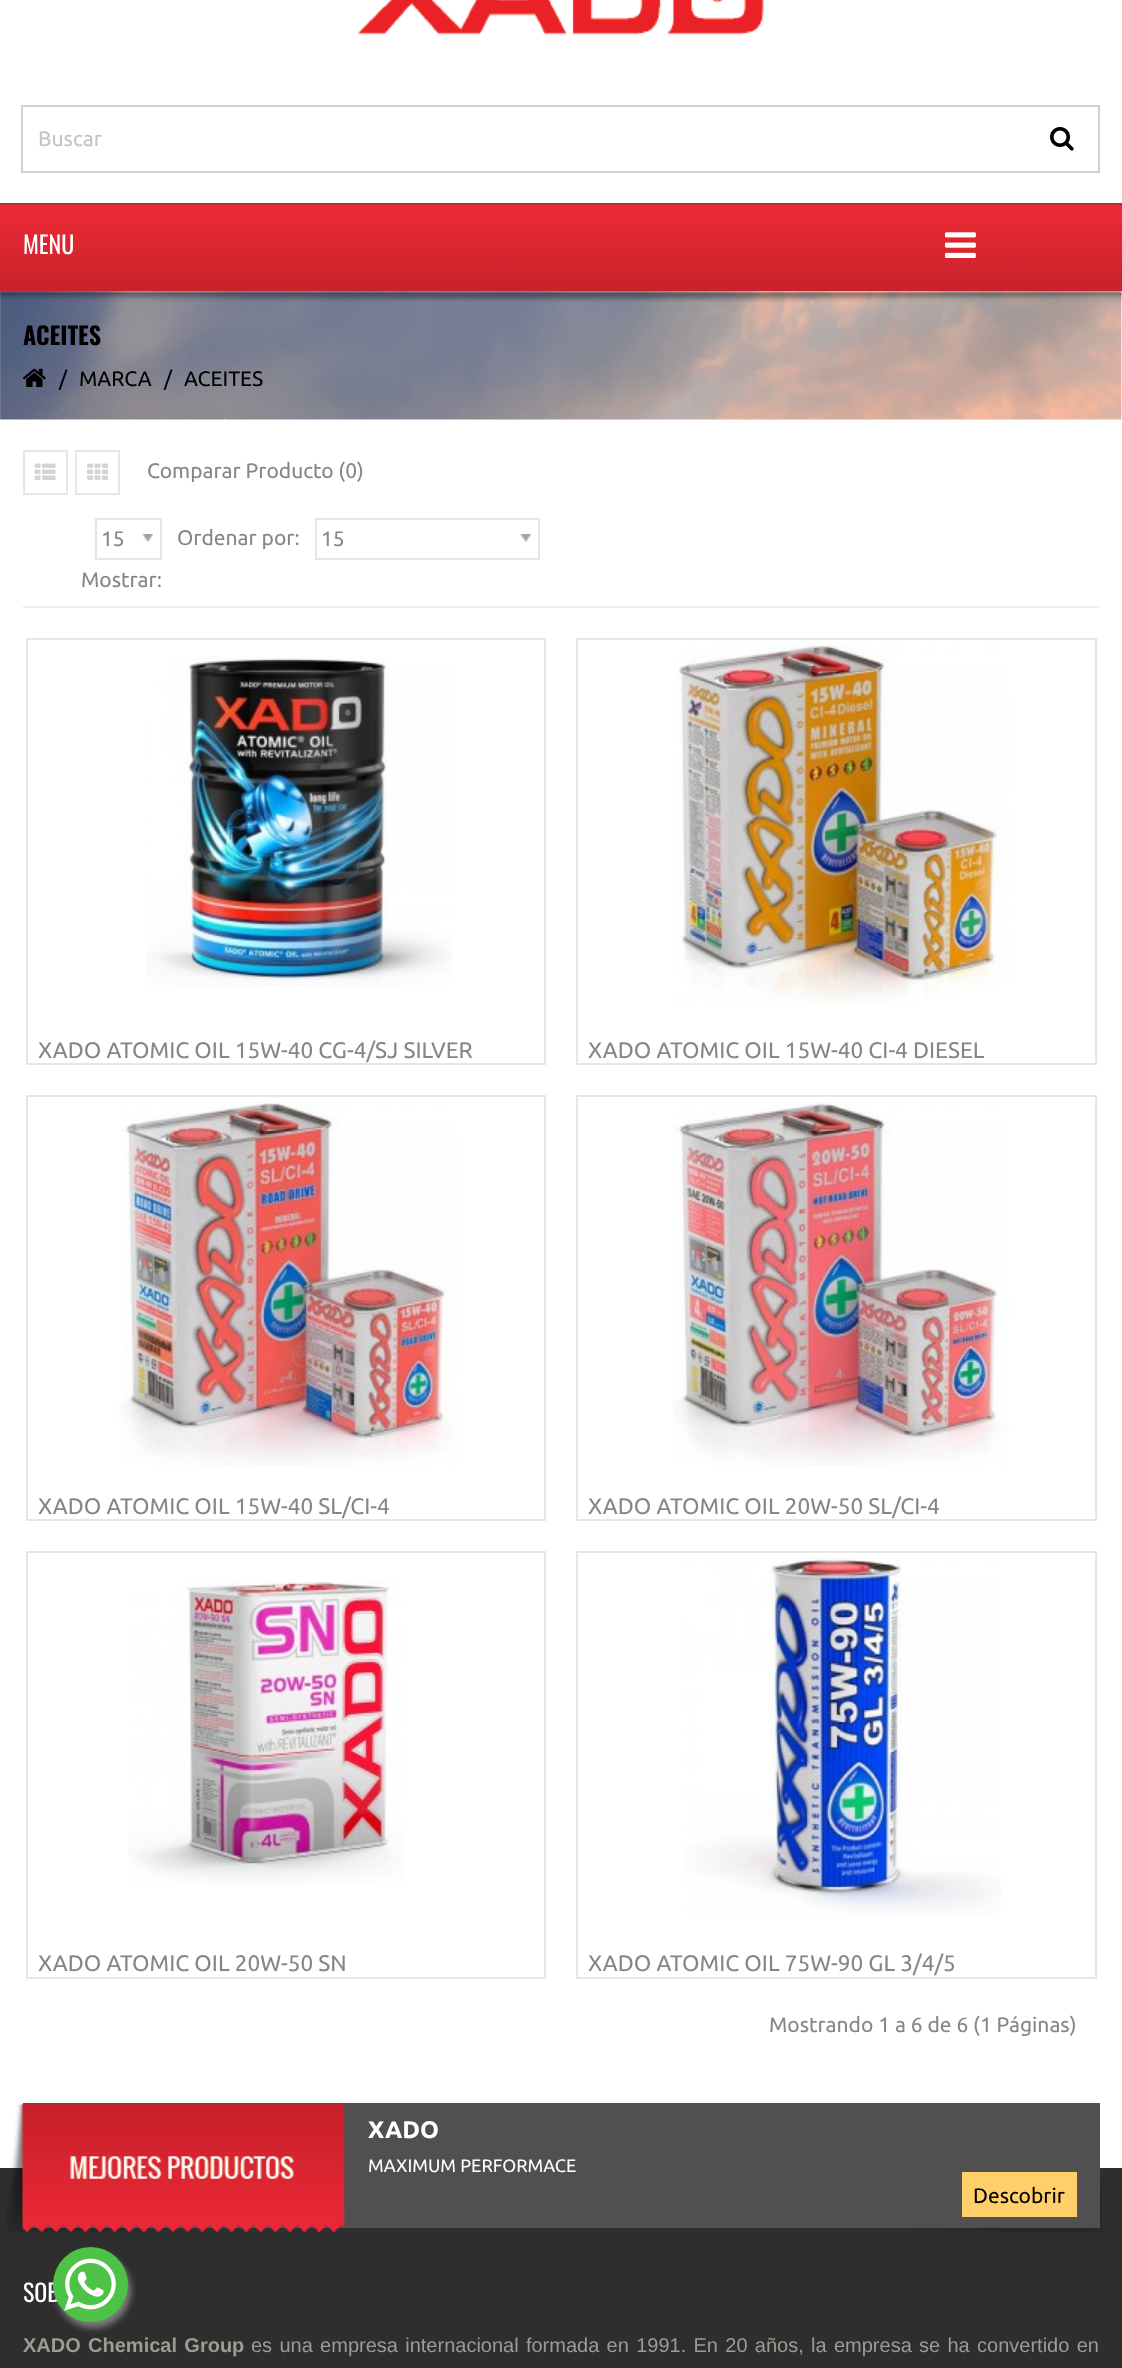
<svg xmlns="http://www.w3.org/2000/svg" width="1122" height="2368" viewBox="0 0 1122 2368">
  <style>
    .t1 { font: 21px Ubuntu; fill: #c3c3c3; }
    .t2 { font: 24px Oswald; fill: #fff; }
    .t3 { font: bold 24px Oswald; fill: #000; }
    .t4 { font: 21px Ubuntu; fill: #000; }
    .t5 { font: 21px Ubuntu; fill: #868686; }
    .t6 { font: 22.5px Ubuntu; fill: #868686; }
    .t7 { font: bold 24px Ubuntu; fill: #fff; }
    .t8 { font: 18px Ubuntu; fill: #fff; }
    .t9 { font: bold 20px Liberation Sans; fill: #9c9c94; }
    .t10 { font: 20px Liberation Sans; fill: #9c9c94; }
  </style>
  <defs>
    <linearGradient id="g1" gradientUnits="userSpaceOnUse" x1="561" y1="291" x2="561" y2="204"><stop offset="0" stop-color="#c8222b"/><stop offset="1" stop-color="#ed2b35"/></linearGradient>
  </defs>
  <rect width="100%" height="100%" fill="#fff"/>
  <image x="357" y="0" width="407" height="35" href="images/1.png"/>
  <rect x="22" y="106" width="1075" height="66" fill="none" stroke="#d0d0d0" stroke-width="2"/>
  <text x="38" y="146" class="t1">Buscar</text>
  <rect x="1096" y="107" width="2" height="64" fill="#fff"/>
  <rect x="1098" y="105" width="2" height="68" fill="#d0d0d0"/>
  <image x="1050" y="127" width="24" height="24" href="images/2.png"/>
  <rect x="0" y="205" width="1122" height="86" fill="url(#g1)"/>
  <rect x="0" y="203" width="1122" height="2" fill="#c8222b"/>
  <text x="23" y="254" class="t2">MENU</text>
  <image x="945" y="232" width="31" height="26" href="images/3.png"/>
  <image x="0" y="291" width="1122" height="129" href="images/5.png"/>
  <image x="0" y="292" width="1122" height="10" href="images/4.png"/>
  <text x="23" y="345" class="t3">ACEITES</text>
  <image x="23" y="368" width="23" height="19" href="images/6.png"/>
  <text x="59" y="386" class="t4">/</text>
  <text x="79" y="386" class="t4">MARCA</text>
  <text x="164" y="386" class="t4">/</text>
  <text x="184" y="386" class="t4">ACEITES</text>
  <rect x="23" y="606" width="1077" height="2" fill="#eee"/>
  <rect x="24" y="451" width="43" height="43" fill="none" stroke="#e6e6e6" stroke-width="2"/>
  <image x="34" y="463" width="22" height="17" href="images/7.png"/>
  <rect x="76" y="451" width="43" height="43" fill="none" stroke="#e6e6e6" stroke-width="2"/>
  <image x="87" y="463" width="21" height="17" href="images/8.png"/>
  <text x="147" y="478" class="t5">Comparar Producto (0)</text>
  <rect x="96" y="519" width="65" height="40" fill="none" stroke="#e6e6e6" stroke-width="2"/>
  <image x="142" y="534" width="11" height="9" href="images/9.png"/>
  <text x="101" y="546" class="t5">15</text>
  <text x="81" y="587" class="t5">Mostrar:</text>
  <text x="177" y="545" class="t5">Ordenar por:</text>
  <rect x="316" y="519" width="223" height="40" fill="none" stroke="#e6e6e6" stroke-width="2"/>
  <image x="520" y="534" width="11" height="9" href="images/10.png"/>
  <text x="321" y="546" class="t5">15</text>
  <rect x="27" y="639" width="518" height="425" fill="none" stroke="#e6e6e6" stroke-width="2"/>
  <image x="146" y="656" width="306" height="330" href="images/11.png"/>
  <text x="38" y="1058" class="t6">XADO ATOMIC OIL 15W-40 CG-4/SJ SILVER</text>
  <rect x="577" y="639" width="519" height="425" fill="none" stroke="#e6e6e6" stroke-width="2"/>
  <image x="673" y="643" width="337" height="360" href="images/12.png"/>
  <text x="588" y="1058" class="t6">XADO ATOMIC OIL 15W-40 CI-4 DIESEL</text>
  <rect x="27" y="1096" width="518" height="424" fill="none" stroke="#e6e6e6" stroke-width="2"/>
  <image x="119" y="1101" width="340" height="365" href="images/13.png"/>
  <text x="38" y="1514" class="t6">XADO ATOMIC OIL 15W-40 SL/CI-4</text>
  <rect x="577" y="1096" width="519" height="424" fill="none" stroke="#e6e6e6" stroke-width="2"/>
  <image x="673" y="1101" width="336" height="365" href="images/14.png"/>
  <text x="588" y="1514" class="t6">XADO ATOMIC OIL 20W-50 SL/CI-4</text>
  <rect x="27" y="1552" width="518" height="426" fill="none" stroke="#e6e6e6" stroke-width="2"/>
  <image x="128" y="1580" width="276" height="305" href="images/15.png"/>
  <text x="38" y="1971" class="t6">XADO ATOMIC OIL 20W-50 SN</text>
  <rect x="577" y="1552" width="519" height="426" fill="none" stroke="#e6e6e6" stroke-width="2"/>
  <image x="684" y="1557" width="317" height="359" href="images/16.png"/>
  <text x="588" y="1971" class="t6">XADO ATOMIC OIL 75W-90 GL 3/4/5</text>
  <text x="769" y="2032" class="t5">Mostrando 1 a 6 de 6 (1 Páginas)</text>
  <rect x="0" y="2168" width="1122" height="200" fill="#2e2e2e"/>
  <image x="7" y="2104" width="189" height="128" href="images/17.png"/>
  <image x="914" y="2180" width="189" height="52" href="images/19.png"/>
  <rect x="23" y="2103" width="1077" height="125" fill="#505050"/>
  <image x="22" y="2103" width="323" height="129" href="images/18.png"/>
  <text x="368" y="2138" class="t7">XADO</text>
  <text x="368" y="2172" class="t8">MAXIMUM PERFORMACE</text>
  <rect x="962" y="2172" width="115" height="45" fill="#ffd069"/>
  <text x="973" y="2203" class="t4">Descobrir</text>
  <rect x="56" y="2253" width="75" height="75" rx="37.5" fill="#7d7d7d" filter="blur(3px)"/>
  <text x="23" y="2302" class="t2">SOB</text>
  <circle cx="90.5" cy="2284.5" r="37.5" fill="#4dc247"/>
  <image x="64" y="2258" width="52" height="53" href="images/20.png"/>
  <text x="23" y="2352" word-spacing="1.75" class="t9">XADO Chemical Group</text>
  <text x="251" y="2352" word-spacing="1.75" class="t10">es una empresa internacional formada en 1991. En 20 años, la empresa se ha convertido en</text>
</svg>
